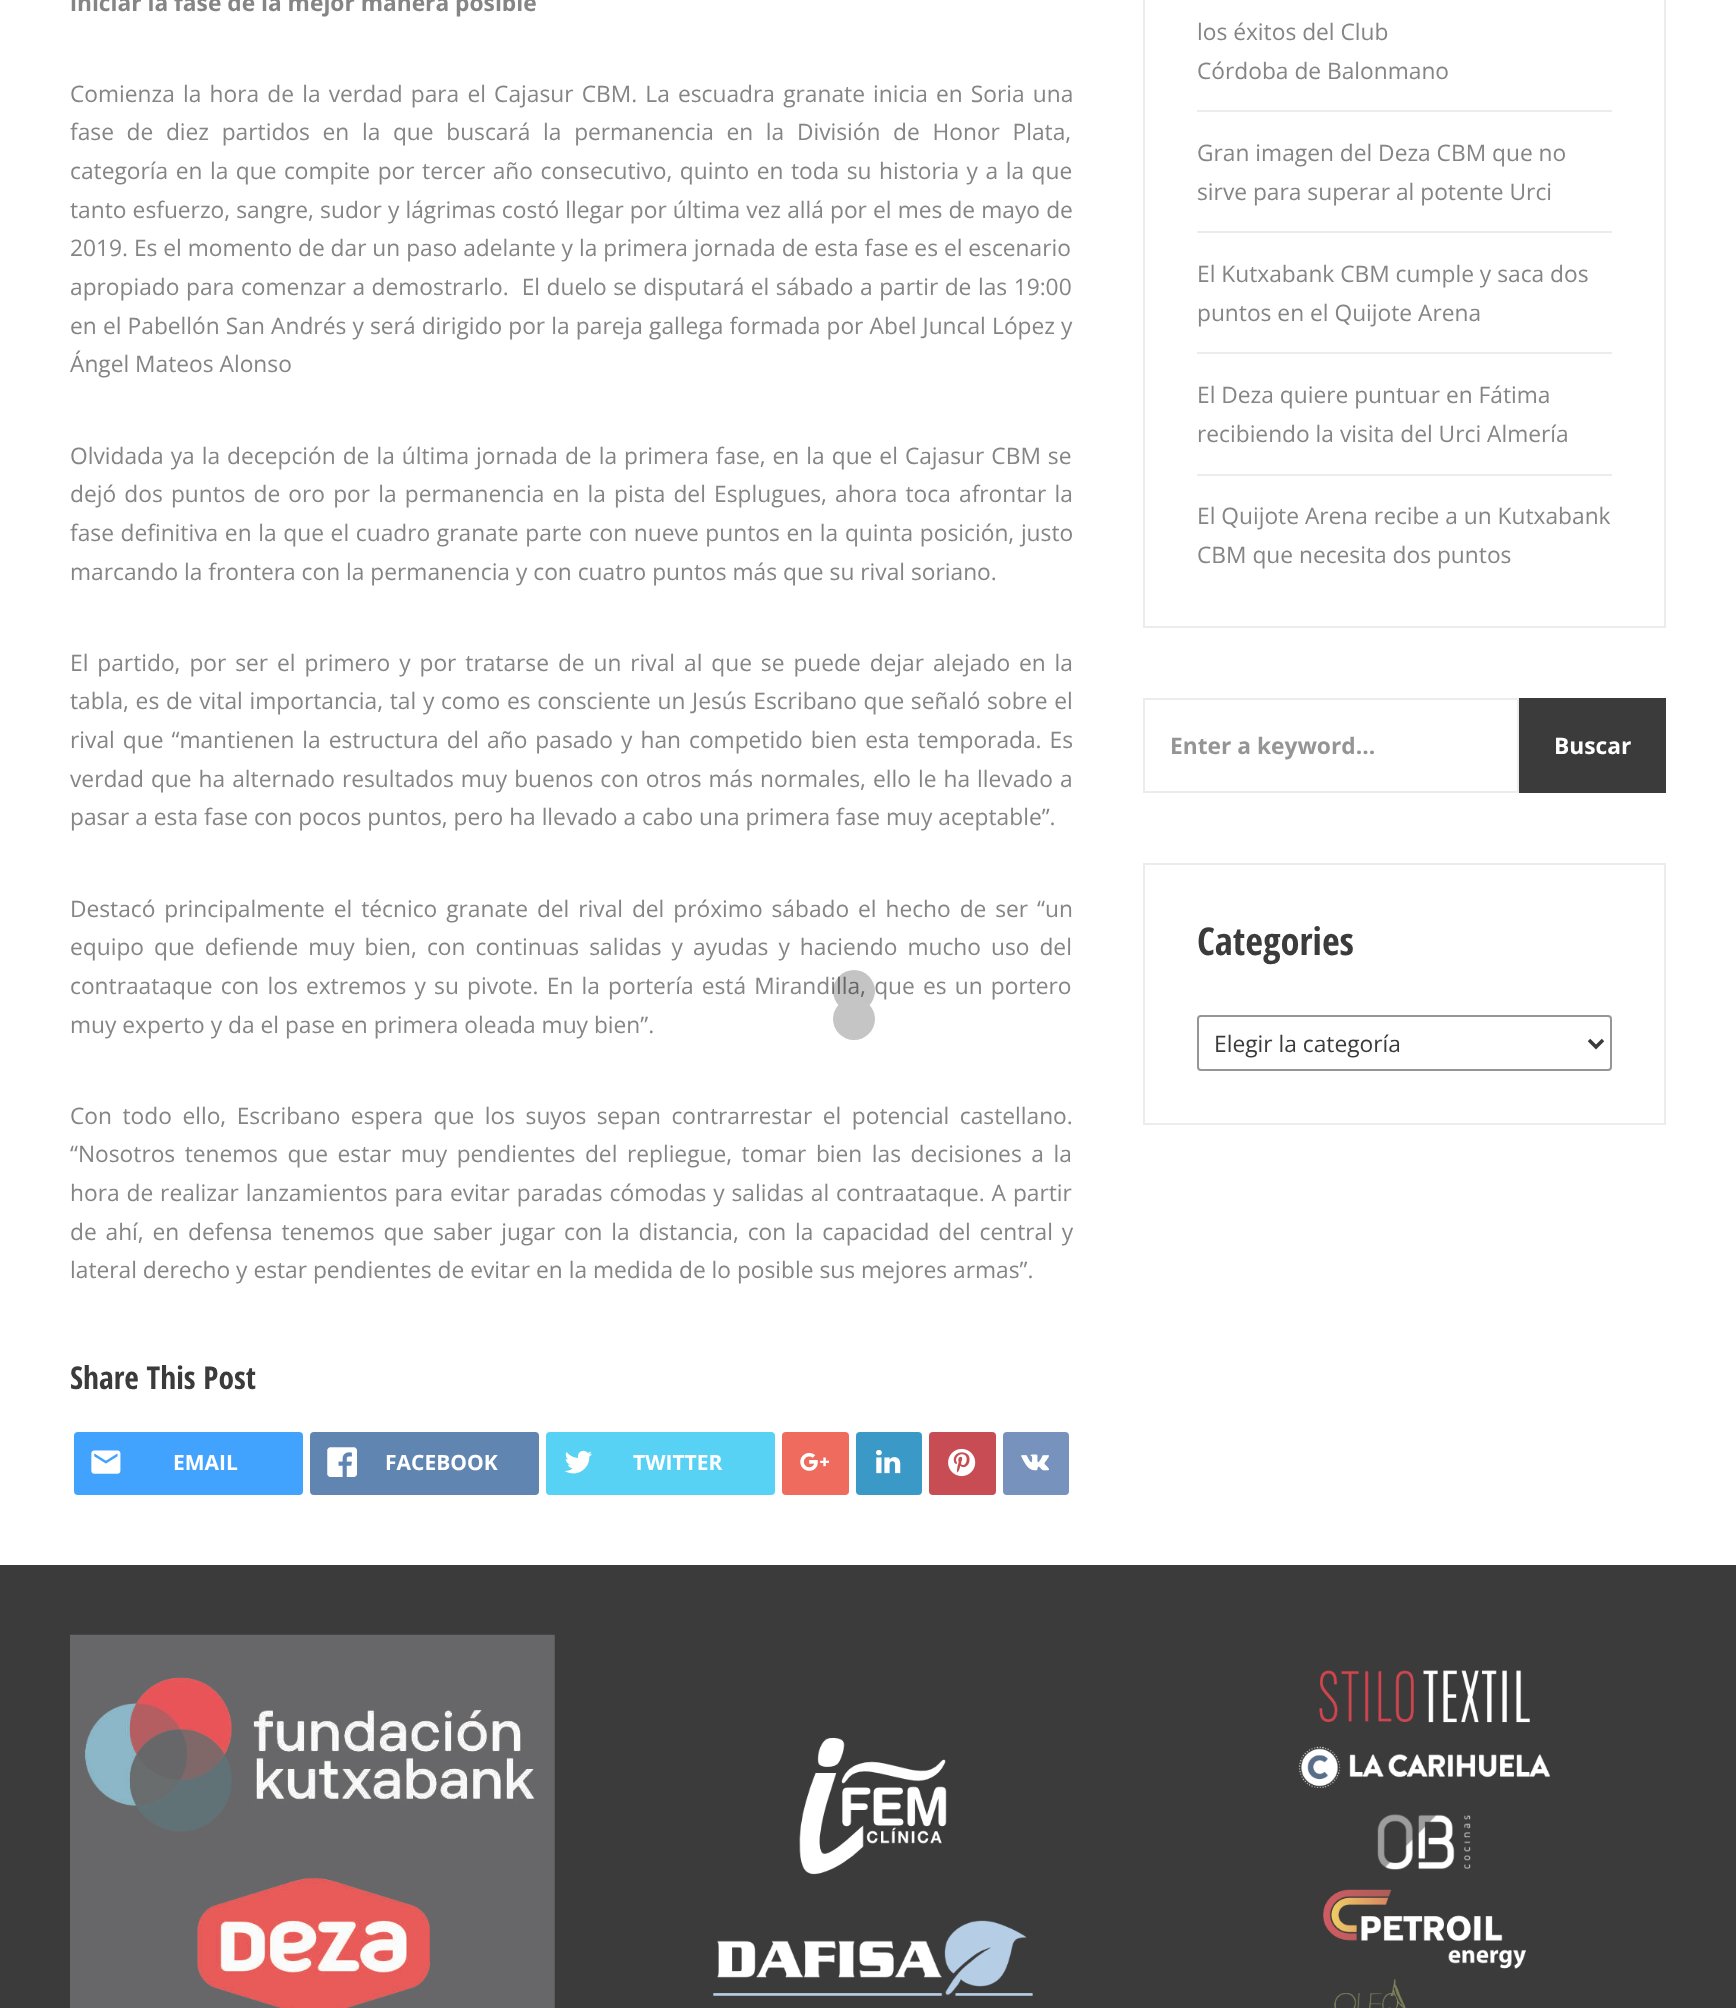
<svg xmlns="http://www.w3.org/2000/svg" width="1736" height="2008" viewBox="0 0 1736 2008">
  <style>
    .t1 { font: bold 22.75px Open Sans; fill: #858585; }
    .t2 { font: 22.75px Open Sans; fill: #858585; }
    .t3 { font: bold 31.5px Open Sans Condensed; fill: #3b3b3b; }
    .t4 { font: bold 21px Open Sans; fill: #fff; }
    .t5 { font: bold 22.75px Open Sans; fill: #959595; }
    .t6 { font: bold 22.75px Open Sans; fill: #fff; }
    .t7 { font: bold 38.5px Open Sans Condensed; fill: #3b3b3b; }
    .t8 { font: 22.75px Open Sans; fill: #3b3b3b; }
  </style>
  <rect width="100%" height="100%" fill="#fff"/>
  <text x="70" y="11" class="t1">iniciar la fase de la mejor manera posible</text>
  <text x="70" y="102" word-spacing="2.25" class="t2">Comienza la hora de la verdad para el Cajasur CBM. La escuadra granate inicia en Soria una</text>
  <text x="70" y="140" word-spacing="6.75" class="t2">fase de diez partidos en la que buscará la permanencia en la División de Honor Plata,</text>
  <text x="70" y="179" word-spacing="1.6" class="t2">categoría en la que compite por tercer año consecutivo, quinto en toda su historia y a la que</text>
  <text x="70" y="218" word-spacing="0.2" class="t2">tanto esfuerzo, sangre, sudor y lágrimas costó llegar por última vez allá por el mes de mayo de</text>
  <text x="70" y="256" class="t2">2019. Es el momento de dar un paso adelante y la primera jornada de esta fase es el escenario</text>
  <text x="70" y="295" word-spacing="0.6" class="t2" xml:space="preserve">apropiado para comenzar a demostrarlo.  El duelo se disputará el sábado a partir de las 19:00</text>
  <text x="70" y="334" word-spacing="0.25" class="t2">en el Pabellón San Andrés y será dirigido por la pareja gallega formada por Abel Juncal López y</text>
  <text x="70" y="372" class="t2">Ángel Mateos Alonso</text>
  <text x="70" y="464" word-spacing="1.1" class="t2">Olvidada ya la decepción de la última jornada de la primera fase, en la que el Cajasur CBM se</text>
  <text x="70" y="502" word-spacing="2.25" class="t2">dejó dos puntos de oro por la permanencia en la pista del Esplugues, ahora toca afrontar la</text>
  <text x="70" y="541" word-spacing="0.75" class="t2">fase definitiva en la que el cuadro granate parte con nueve puntos en la quinta posición, justo</text>
  <text x="70" y="580" class="t2">marcando la frontera con la permanencia y con cuatro puntos más que su rival soriano.</text>
  <text x="70" y="671" word-spacing="3" class="t2">El partido, por ser el primero y por tratarse de un rival al que se puede dejar alejado en la</text>
  <text x="70" y="709" word-spacing="0.75" class="t2">tabla, es de vital importancia, tal y como es consciente un Jesús Escribano que señaló sobre el</text>
  <text x="70" y="748" word-spacing="2.1" class="t2">rival que “mantienen la estructura del año pasado y han competido bien esta temporada. Es</text>
  <text x="70" y="787" word-spacing="1.1" class="t2">verdad que ha alternado resultados muy buenos con otros más normales, ello le ha llevado a</text>
  <text x="70" y="825" class="t2">pasar a esta fase con pocos puntos, pero ha llevado a cabo una primera fase muy aceptable”.</text>
  <text x="70" y="917" word-spacing="3" class="t2">Destacó principalmente el técnico granate del rival del próximo sábado el hecho de ser “un</text>
  <text x="70" y="955" word-spacing="4.1" class="t2">equipo que defiende muy bien, con continuas salidas y ayudas y haciendo mucho uso del</text>
  <text x="70" y="994" word-spacing="2.25" class="t2">contraataque con los extremos y su pivote. En la portería está Mirandilla, que es un portero</text>
  <text x="70" y="1033" class="t2">muy experto y da el pase en primera oleada muy bien”.</text>
  <text x="70" y="1124" word-spacing="4.6" class="t2">Con todo ello, Escribano espera que los suyos sepan contrarrestar el potencial castellano.</text>
  <text x="70" y="1162" word-spacing="3.6" class="t2">“Nosotros tenemos que estar muy pendientes del repliegue, tomar bien las decisiones a la</text>
  <text x="70" y="1201" word-spacing="1" class="t2">hora de realizar lanzamientos para evitar paradas cómodas y salidas al contraataque. A partir</text>
  <text x="70" y="1240" word-spacing="2.9" class="t2">de ahí, en defensa tenemos que saber jugar con la distancia, con la capacidad del central y</text>
  <text x="70" y="1278" class="t2">lateral derecho y estar pendientes de evitar en la medida de lo posible sus mejores armas”.</text>
  <text x="70" y="1389" class="t3">Share This Post</text>
  <rect x="74" y="1432" width="229" height="63" rx="4" fill="#42a3ff"/>
  <image x="91" y="1450" width="30" height="24" href="images/1.png"/>
  <text x="173" y="1470" class="t4">EMAIL</text>
  <rect x="310" y="1432" width="229" height="63" rx="4" fill="#6085b0"/>
  <image x="327" y="1447" width="30" height="30" href="images/2.png"/>
  <text x="385" y="1470" class="t4">FACEBOOK</text>
  <rect x="546" y="1432" width="229" height="63" rx="4" fill="#58d2f4"/>
  <image x="565" y="1450" width="27" height="24" href="images/3.png"/>
  <text x="633" y="1470" class="t4">TWITTER</text>
  <rect x="782" y="1432" width="67" height="63" rx="4" fill="#ee6b5e"/>
  <image x="800" y="1452" width="29" height="19" href="images/4.png"/>
  <rect x="856" y="1432" width="66" height="63" rx="4" fill="#3b99c7"/>
  <image x="876" y="1449" width="25" height="25" href="images/5.png"/>
  <rect x="929" y="1432" width="67" height="63" rx="4" fill="#c84c54"/>
  <image x="948" y="1448" width="28" height="29" href="images/6.png"/>
  <rect x="1003" y="1432" width="66" height="63" rx="4" fill="#7692bd"/>
  <image x="1021" y="1454" width="28" height="17" href="images/7.png"/>
  <rect x="1144" y="-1" width="521" height="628" fill="none" stroke="#ececec" stroke-width="2"/>
  <rect x="1197" y="110" width="415" height="2" fill="#ececec"/>
  <text x="1197" y="40" class="t2">los éxitos del Club</text>
  <text x="1197" y="79" class="t2">Córdoba de Balonmano</text>
  <rect x="1197" y="231" width="415" height="2" fill="#ececec"/>
  <text x="1197" y="161" class="t2">Gran imagen del Deza CBM que no</text>
  <text x="1197" y="200" class="t2">sirve para superar al potente Urci</text>
  <rect x="1197" y="352" width="415" height="2" fill="#ececec"/>
  <text x="1197" y="282" class="t2">El Kutxabank CBM cumple y saca dos</text>
  <text x="1197" y="321" class="t2">puntos en el Quijote Arena</text>
  <rect x="1197" y="474" width="415" height="2" fill="#ececec"/>
  <text x="1197" y="403" class="t2">El Deza quiere puntuar en Fátima</text>
  <text x="1197" y="442" class="t2">recibiendo la visita del Urci Almería</text>
  <text x="1197" y="524" class="t2">El Quijote Arena recibe a un Kutxabank</text>
  <text x="1197" y="563" class="t2">CBM que necesita dos puntos</text>
  <rect x="1144" y="699" width="374" height="93" fill="none" stroke="#ececec" stroke-width="2"/>
  <text x="1170" y="754" class="t5">Enter a keyword...</text>
  <rect x="1519" y="698" width="147" height="95" fill="#3b3b3b"/>
  <text x="1554" y="754" class="t6">Buscar</text>
  <rect x="1144" y="864" width="521" height="260" fill="none" stroke="#ececec" stroke-width="2"/>
  <text x="1197" y="955" class="t7">Categories</text>
  <rect x="1198" y="1016" width="413" height="54" rx="3" fill="none" stroke="#969696" stroke-width="2"/>
  <path d="M1589 1040L1596 1047L1603 1040" fill="none" stroke="#3b3b3b" stroke-width="3.5"/>
  <text x="1214" y="1052" class="t8">Elegir la categoría</text>
  <rect x="0" y="1565" width="1736" height="443" fill="#3b3b3b"/>
  <image x="70" y="1634" width="485" height="374" href="images/8.png"/>
  <image x="713" y="1737" width="320" height="259" href="images/9.png"/>
  <image x="1298" y="1670" width="252" height="338" href="images/10.png"/>
  <circle cx="854" cy="991" r="21" fill="#0000003b"/>
  <circle cx="854" cy="1019" r="21" fill="#c5c5c5"/>
</svg>
